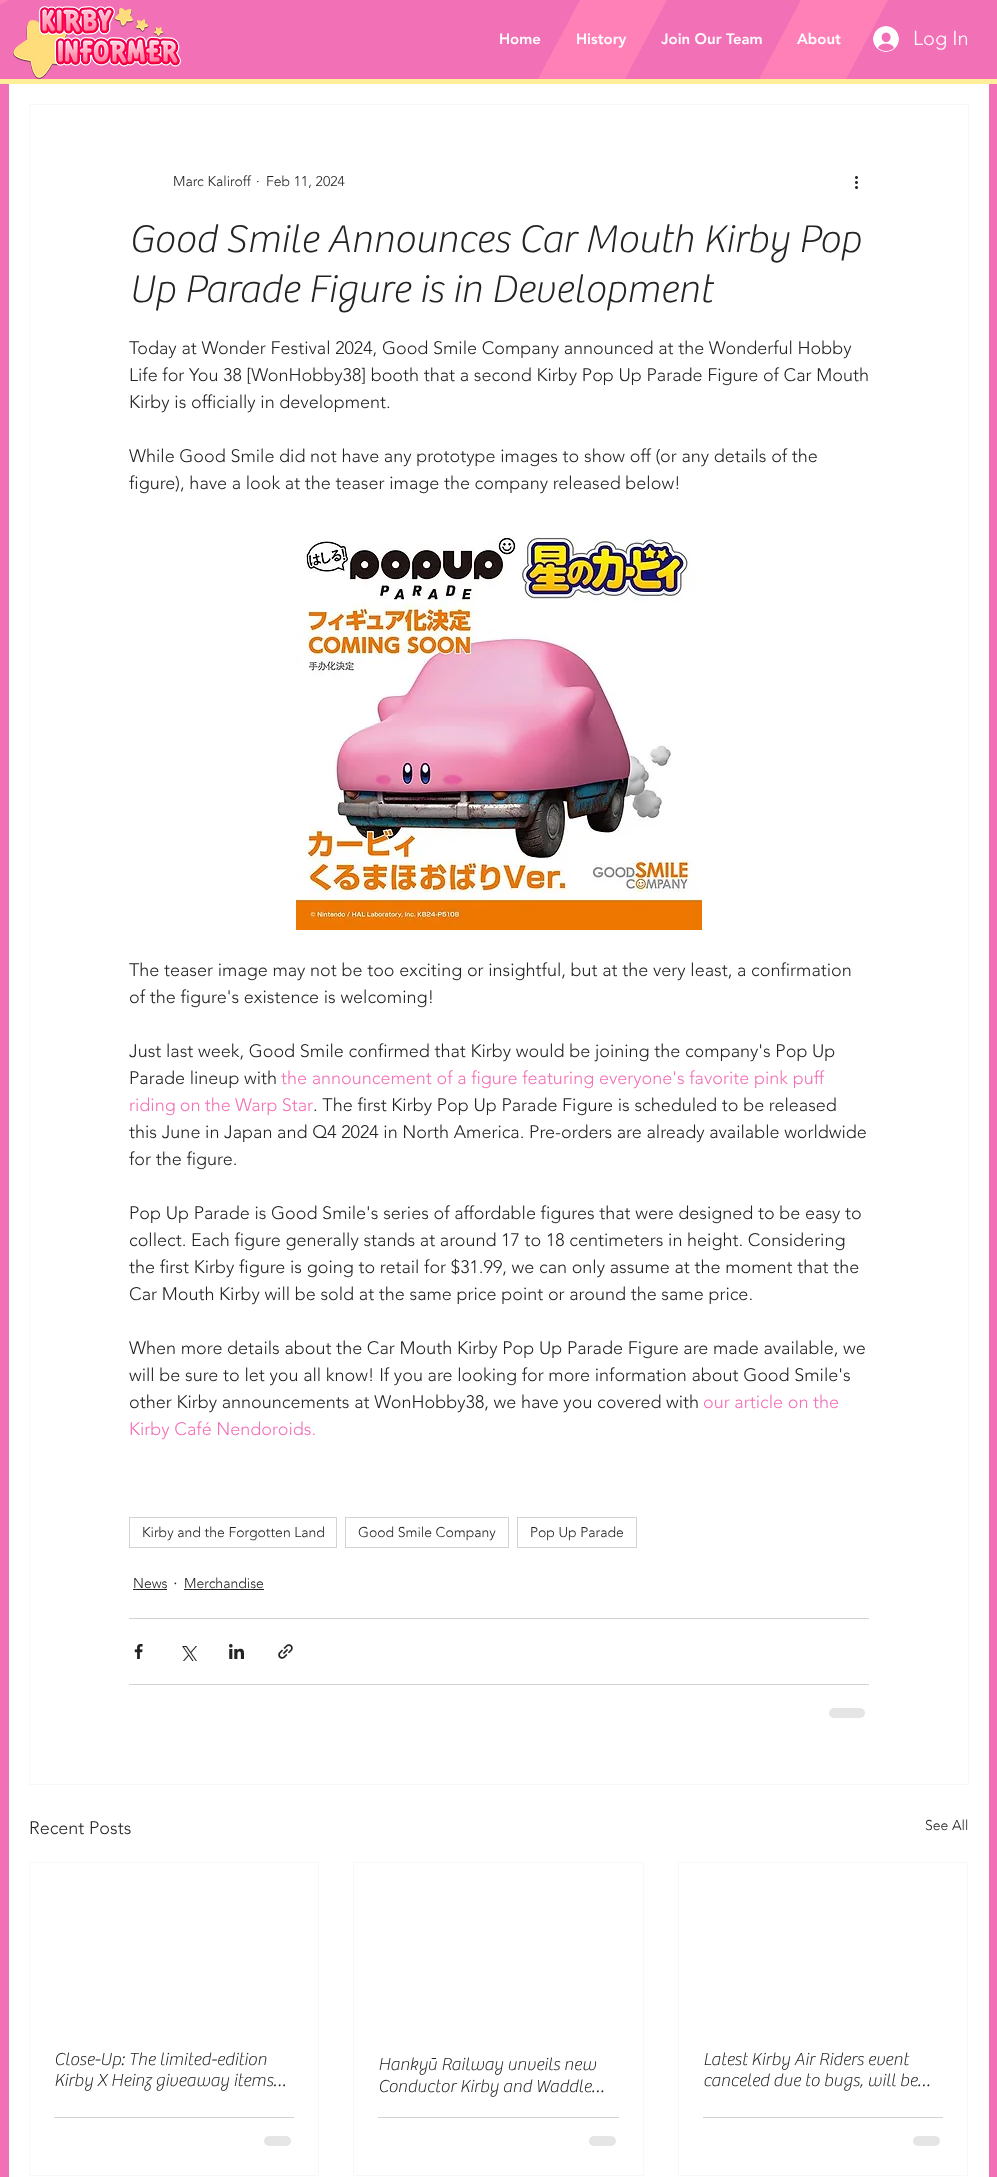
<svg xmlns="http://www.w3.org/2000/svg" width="997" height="2177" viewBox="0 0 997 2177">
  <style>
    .t1 { font: 300 20px 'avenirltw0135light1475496'; fill: #fff; }
    .t2 { font: 900 15px 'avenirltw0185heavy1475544'; fill: #fff; }
    .t3 { font: 300 14px 'avenirltw0135light1475496'; fill: #232323; }
    .t4 { font: 100 40px 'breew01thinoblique'; fill: #232323; }
    .t5 { font: 300 18px 'avenirltw0135light1475496'; fill: #232323; }
    .t6 { font: 300 18px 'avenirltw0135light1475496'; fill: #f270b6; }
    .t7 { font: 100 18px 'breew01thinoblique'; fill: #232323; }
    .t8 { font: 100 18px 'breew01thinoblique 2'; fill: #232323; }
  </style>
  <rect width="100%" height="100%" fill="#f270b6"/>
  <path d="M-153 79H-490L-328 0H9Z" fill="#ff80b7"/>
  <rect x="0" y="79" width="997" height="5" fill="#fe9"/>
  <image x="13" y="6" width="169" height="74" href="images/1.png"/>
  <path d="M625 79H538L580 0H667Z" fill="#ff80b7"/>
  <path d="M846 79H759L801 0H888Z" fill="#ff80b7"/>
  <image x="873" y="26" width="26" height="26" href="images/2.png"/>
  <text x="913" y="45" class="t1">Log In</text>
  <text x="499" y="44" class="t2">Home</text>
  <text x="576" y="44" class="t2">History</text>
  <text x="661" y="44" class="t2">Join Our Team</text>
  <text x="797" y="44" class="t2">About</text>
  <rect x="9" y="84" width="980" height="2093" fill="#fff"/>
  <rect x="29.5" y="104.5" width="939" height="1680" fill="none" stroke="#f8f8f8"/>
  <text x="173" y="186" class="t3">Marc Kaliroff</text>
  <text x="256" y="186" class="t3">·</text>
  <text x="266" y="186" class="t3">Feb 11, 2024</text>
  <image x="855" y="176" width="3" height="13" href="images/3.png"/>
  <text x="129" y="252" class="t4">Good Smile Announces Car Mouth Kirby Pop</text>
  <text x="129" y="302" class="t4">Up Parade Figure is in Development</text>
  <text x="129" y="354" class="t5">Today at Wonder Festival 2024, Good Smile Company announced at the Wonderful Hobby</text>
  <text x="129" y="381" class="t5">Life for You 38 [WonHobby38] booth that a second Kirby Pop Up Parade Figure of Car Mouth</text>
  <text x="129" y="408" class="t5">Kirby is officially in development.</text>
  <text x="129" y="462" class="t5">While Good Smile did not have any prototype images to show off (or any details of the</text>
  <text x="129" y="489" class="t5">figure), have a look at the teaser image the company released below!</text>
  <image x="296" y="536" width="406" height="394" href="images/4.png"/>
  <text x="129" y="976" class="t5">The teaser image may not be too exciting or insightful, but at the very least, a confirmation</text>
  <text x="129" y="1003" class="t5">of the figure's existence is welcoming!</text>
  <text x="129" y="1057" class="t5">Just last week, Good Smile confirmed that Kirby would be joining the company's Pop Up</text>
  <text x="129" y="1084" class="t5">Parade lineup with</text>
  <text x="281" y="1084" class="t6">the announcement of a figure featuring everyone's favorite pink puff</text>
  <text x="129" y="1111" word-spacing="-0.5" class="t6">riding on the Warp Star</text>
  <text x="313" y="1111" class="t5">. The first Kirby Pop Up Parade Figure is scheduled to be released</text>
  <text x="129" y="1138" class="t5">this June in Japan and Q4 2024 in North America. Pre-orders are already available worldwide</text>
  <text x="129" y="1165" class="t5">for the figure.</text>
  <text x="129" y="1219" class="t5">Pop Up Parade is Good Smile's series of affordable figures that were designed to be easy to</text>
  <text x="129" y="1246" class="t5">collect. Each figure generally stands at around 17 to 18 centimeters in height. Considering</text>
  <text x="129" y="1273" class="t5">the first Kirby figure is going to retail for $31.99, we can only assume at the moment that the</text>
  <text x="129" y="1300" class="t5">Car Mouth Kirby will be sold at the same price point or around the same price.</text>
  <text x="129" y="1354" class="t5">When more details about the Car Mouth Kirby Pop Up Parade Figure are made available, we</text>
  <text x="129" y="1381" class="t5">will be sure to let you all know! If you are looking for more information about Good Smile's</text>
  <text x="129" y="1408" class="t5">other Kirby announcements at WonHobby38, we have you covered with</text>
  <text x="703" y="1408" class="t6">our article on the</text>
  <text x="129" y="1435" class="t6">Kirby Café Nendoroids.</text>
  <rect x="129.5" y="1517.5" width="207" height="30" fill="none" stroke="#d3d3d3"/>
  <text x="142" y="1537" class="t3">Kirby and the Forgotten Land</text>
  <rect x="345.5" y="1517.5" width="163" height="30" fill="none" stroke="#d3d3d3"/>
  <text x="358" y="1537" class="t3">Good Smile Company</text>
  <rect x="517.5" y="1517.5" width="119" height="30" fill="none" stroke="#d3d3d3"/>
  <text x="530" y="1537" class="t3">Pop Up Parade</text>
  <text x="133" y="1588" class="t3">News</text>
  <rect x="133" y="1589" width="34" height="1" fill="#232323"/>
  <text x="173" y="1589" class="t5">·</text>
  <text x="184" y="1588" class="t3">Merchandise</text>
  <rect x="184" y="1589" width="80" height="1" fill="#232323"/>
  <rect x="129" y="1618" width="740" height="1" fill="#d3d3d3"/>
  <image x="134" y="1644" width="9" height="15" href="images/5.png"/>
  <image x="182" y="1646" width="15" height="15" href="images/6.png"/>
  <image x="229" y="1644" width="15" height="15" href="images/7.png"/>
  <image x="278" y="1644" width="15" height="15" href="images/8.png"/>
  <rect x="129" y="1684" width="740" height="1" fill="#d3d3d3"/>
  <rect x="829" y="1708" width="36" height="10" rx="5" fill="#e5e5e5"/>
  <text x="29" y="1834" class="t5">Recent Posts</text>
  <text x="925" y="1830" class="t3">See All</text>
  <rect x="29.5" y="1862.5" width="289" height="313" fill="none" stroke="#f8f8f8"/>
  <text x="54" y="2065" class="t7">Close-Up: The limited-edition</text>
  <text x="54" y="2086" class="t7">Kirby X Heinz giveaway items…</text>
  <rect x="54" y="2117" width="240" height="1" fill="#d3d3d3"/>
  <rect x="264" y="2136" width="27" height="10" rx="5" fill="#e5e5e5"/>
  <rect x="353.5" y="1862.5" width="290" height="313" fill="none" stroke="#f8f8f8"/>
  <text x="378" y="2070" class="t7">Hanky</text>
  <text x="428" y="2070" class="t8">ū</text>
  <text x="441" y="2070" class="t7">Railway unveils new</text>
  <text x="378" y="2092" class="t7">Conductor Kirby and Waddle…</text>
  <rect x="378" y="2117" width="241" height="1" fill="#d3d3d3"/>
  <rect x="589" y="2136" width="27" height="10" rx="5" fill="#e5e5e5"/>
  <rect x="678.5" y="1862.5" width="289" height="313" fill="none" stroke="#f8f8f8"/>
  <text x="703" y="2065" class="t7">Latest Kirby Air Riders event</text>
  <text x="703" y="2086" class="t7">canceled due to bugs, will be…</text>
  <rect x="703" y="2117" width="240" height="1" fill="#d3d3d3"/>
  <rect x="913" y="2136" width="27" height="10" rx="5" fill="#e5e5e5"/>
</svg>
